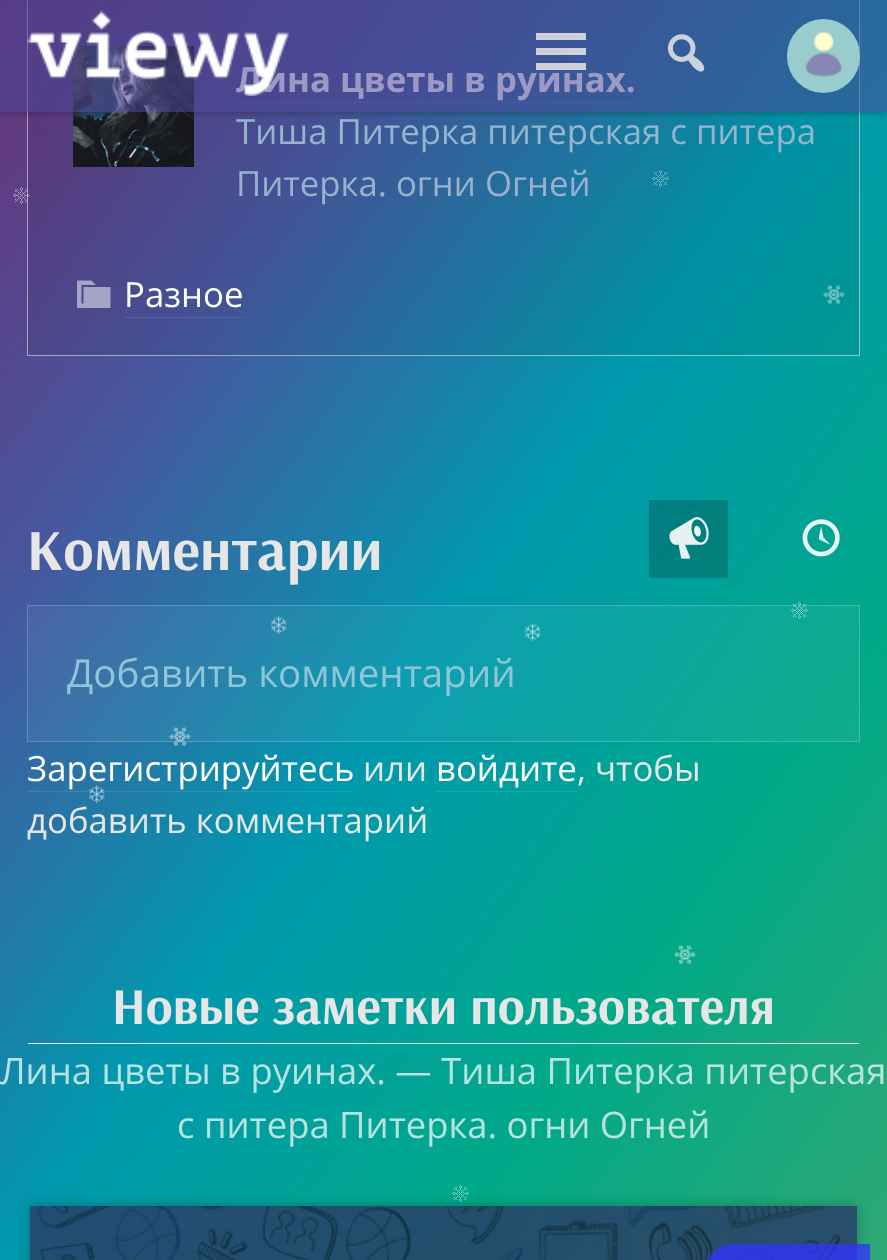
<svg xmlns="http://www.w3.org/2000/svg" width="887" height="1260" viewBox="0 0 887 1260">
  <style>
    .t1 { font: bold 34.75px Open Sans; fill: #fff; }
    .t2 { font: 34.75px Open Sans; fill: #93b6ce; }
    .t3 { font: 34.75px Open Sans; fill: #99b1cd; }
    .t4 { font: 34.75px Open Sans; fill: #fff; }
    .t5 { font: bold 58px Arsenal; fill: #e6e6e6; }
    .t6 { font: 38.5px Open Sans; fill: #90c5d6; }
    .t7 { font: 34.75px Open Sans; fill: #e6e6e6; }
    .t8 { font: bold 51.4px Arsenal; fill: #e6e6e6; }
    .t9 { font: 36.4px Open Sans; fill: #b5e3df; }
  </style>
  <defs>
    <linearGradient id="g1" gradientUnits="userSpaceOnUse" x1="-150" y1="212" x2="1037" y2="1048"><stop offset="0" stop-color="#6a3179"/><stop offset="0.25" stop-color="#4559a0"/><stop offset="0.5" stop-color="#0099ae"/><stop offset="0.75" stop-color="#01a987"/><stop offset="1" stop-color="#2fa875"/></linearGradient>
    <linearGradient id="g2" gradientUnits="userSpaceOnUse" x1="-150" y1="212" x2="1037" y2="1048"><stop offset="0" stop-color="#794686"/><stop offset="0.25" stop-color="#586aaa"/><stop offset="0.5" stop-color="#1aa3b6"/><stop offset="0.75" stop-color="#1ab293"/><stop offset="1" stop-color="#44b183"/></linearGradient>
    <linearGradient id="g3" gradientUnits="userSpaceOnUse" x1="-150" y1="212" x2="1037" y2="1048"><stop offset="0" stop-color="#552761"/><stop offset="0.25" stop-color="#374780"/><stop offset="0.5" stop-color="#007a8b"/><stop offset="0.75" stop-color="#01876c"/><stop offset="1" stop-color="#26865e"/></linearGradient>
    <clipPath id="clip1"><rect x="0" y="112" width="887" height="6"/></clipPath>
    <clipPath id="clip2"><path d="M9 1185H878V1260H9ZM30 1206H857V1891H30Z" clip-rule="evenodd"/></clipPath>
  </defs>
  <rect width="100%" height="100%" fill="#fff"/>
  <rect x="0" y="0" width="887" height="1260" fill="url(#g1)"/>
  <rect x="436" y="791" width="141" height="1" fill="url(#g2)"/>
  <rect x="649" y="500" width="79" height="78" fill="url(#g3)"/>
  <image x="652" y="170" width="17" height="17" href="images/7.png"/>
  <image x="13" y="187" width="17" height="17" href="images/8.png"/>
  <image x="823" y="285" width="22" height="19" href="images/9.png"/>
  <rect x="27" y="0" width="833" height="356" fill="#0000000d"/>
  <rect x="27.5" y="-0.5" width="832" height="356" fill="none" stroke="#ffffff80"/>
  <image x="73" y="46" width="121" height="121" href="images/4.png"/>
  <rect x="236" y="102" width="399" height="1" fill="#ffffff1a"/>
  <g clip-path="url(#clip1)">
    <rect x="0" y="0" width="887" height="112" fill="#00000059" filter="blur(3.5px)"/>
  </g>
  <text x="236" y="92" class="t1">Лина цветы в руинах.</text>
  <rect x="0" y="0" width="887" height="112" fill="#4b46968c"/>
  <image x="27" y="10" width="262" height="86" href="images/1.png"/>
  <path d="M586 40V33H536V40ZM586 55V48H536V55ZM586 70V63H536V70Z" fill="#e6e6e6d9"/>
  <image x="667" y="34" width="38" height="38" href="images/2.png"/>
  <image x="787" y="19" width="73" height="74" href="images/3.png"/>
  <text x="236" y="144" class="t2">Тиша Питерка питерская с питера</text>
  <text x="236" y="196" class="t3">Питерка. огни Огней</text>
  <path d="M83.5 287H110.5V308H77V280.5H91.5L96 285H81.5V303.5H83.5Z" fill="#ffffff80"/>
  <text x="124" y="307" class="t4">Разное</text>
  <rect x="124" y="317" width="119" height="1" fill="#ffffff1a"/>
  <text x="27" y="570" class="t5">Комментарии</text>
  <image x="669" y="517" width="40" height="42" href="images/5.png"/>
  <image x="802" y="519" width="38" height="38" href="images/6.png"/>
  <image x="791" y="602" width="17" height="17" href="images/10.png"/>
  <image x="270" y="616" width="17" height="18" href="images/11.png"/>
  <image x="524" y="623" width="17" height="18" href="images/12.png"/>
  <image x="169" y="727" width="22" height="19" href="images/13.png"/>
  <rect x="27" y="605" width="833" height="137" fill="#ffffff0d"/>
  <rect x="27.5" y="605.5" width="832" height="136" fill="none" stroke="#ffffff33"/>
  <text x="67" y="687" class="t6">Добавить комментарий</text>
  <image x="88" y="785" width="17" height="18" href="images/14.png"/>
  <text x="27" y="781" class="t4">Зарегистрируйтесь</text>
  <rect x="27" y="791" width="327" height="1" fill="#ffffff1a"/>
  <text x="363" y="781" class="t7">или</text>
  <text x="436" y="781" class="t4">войдите</text>
  <text x="577" y="781" class="t7">, чтобы</text>
  <text x="27" y="833" class="t7">добавить комментарий</text>
  <image x="674" y="945" width="22" height="19" href="images/15.png"/>
  <rect x="28" y="1043" width="831" height="1" fill="#e6e6e6"/>
  <text x="112" y="1024" class="t8">Новые заметки пользователя</text>
  <text x="0" y="1084" class="t9">Лина цветы в руинах. — Тиша Питерка питерская</text>
  <text x="177" y="1138" class="t9">с питера Питерка. огни Огней</text>
  <image x="452" y="1185" width="17" height="17" href="images/17.png"/>
  <g clip-path="url(#clip2)">
    <rect x="30" y="1206" width="827" height="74" fill="#00000042" filter="blur(6.5px)"/>
  </g>
  <image x="30" y="1206" width="827" height="54" href="images/16.png"/>
  <path d="M734 1244H870V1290H734C717.5 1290 704 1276.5 704 1260V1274C704 1257.5 717.5 1244 734 1244Z" fill="#3333ffc4"/>
</svg>
